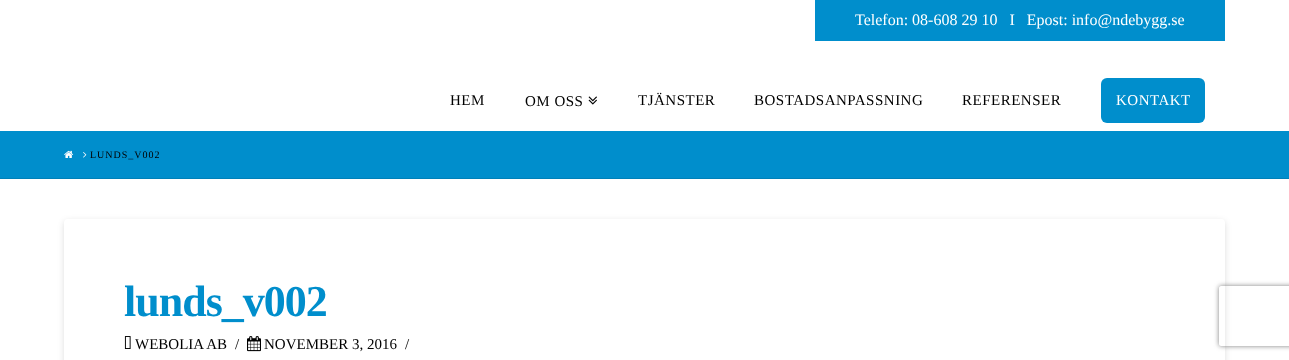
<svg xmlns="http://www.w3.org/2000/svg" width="1289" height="360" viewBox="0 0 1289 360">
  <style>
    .t1 { font: 16px Liberation Serif; fill: #fff; }
    .t2 { font: 15px Liberation Serif; letter-spacing: 0.5px; fill: #000; }
    .t3 { font: 15px Liberation Serif; letter-spacing: 0.5px; fill: #fff; }
    .t4 { font: 10px Liberation Serif; letter-spacing: 1px; fill: #000; }
    .t5 { font: bold 44px Liberation Serif; letter-spacing: -1px; fill: #008ecc; }
    .t6 { font: 15px Liberation Serif; fill: #000; }
  </style>
  <defs>
    <clipPath id="clip1"><path d="M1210 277H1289V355H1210ZM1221 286H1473C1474 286 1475 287 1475 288V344C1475 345 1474 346 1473 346H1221C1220 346 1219 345 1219 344V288C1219 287 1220 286 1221 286Z" clip-rule="evenodd"/></clipPath>
  </defs>
  <rect width="100%" height="100%" fill="#fff"/>
  <rect x="815" y="0" width="410" height="41" fill="#008ecc"/>
  <text x="855" y="25" class="t1" xml:space="preserve">Telefon: 08-608 29 10   I   Epost: info@ndebygg.se</text>
  <text x="450" y="105" class="t2">HEM</text>
  <text x="525" y="106" class="t2">OM OSS</text>
  <image x="588" y="96" width="9" height="9" href="images/1.png"/>
  <text x="638" y="105" class="t2">TJÄNSTER</text>
  <text x="754" y="105" class="t2">BOSTADSANPASSNING</text>
  <text x="962" y="105" class="t2">REFERENSER</text>
  <rect x="1101" y="78" width="104" height="45" rx="6" fill="#008ecc"/>
  <text x="1116" y="105" class="t3">KONTAKT</text>
  <rect x="0" y="131" width="1289" height="47" fill="#008ecc"/>
  <rect x="0" y="178" width="1289" height="1" fill="#0080b8"/>
  <image x="64" y="150" width="10" height="8" href="images/2.png"/>
  <image x="83" y="152" width="4" height="6" href="images/3.png"/>
  <text x="90" y="158" class="t4">LUNDS_V002</text>
  <rect x="64" y="221" width="1161" height="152" rx="4" fill="#00000021" filter="blur(3px)"/>
  <rect x="64" y="219" width="1161" height="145" rx="4" fill="#fff"/>
  <text x="124" y="316" class="t5">lunds_v002</text>
  <image x="124" y="336" width="7" height="13" href="images/4.png"/>
  <text x="135" y="349" class="t6">WEBOLIA AB</text>
  <text x="235" y="349" class="t6">/</text>
  <image x="247" y="336" width="14" height="16" href="images/5.png"/>
  <text x="264" y="349" class="t6">NOVEMBER 3, 2016</text>
  <text x="405" y="349" class="t6">/</text>
  <g clip-path="url(#clip1)">
    <rect x="1219" y="286" width="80" height="60" rx="2" fill="#808080" filter="blur(2.5px)"/>
  </g>
</svg>
